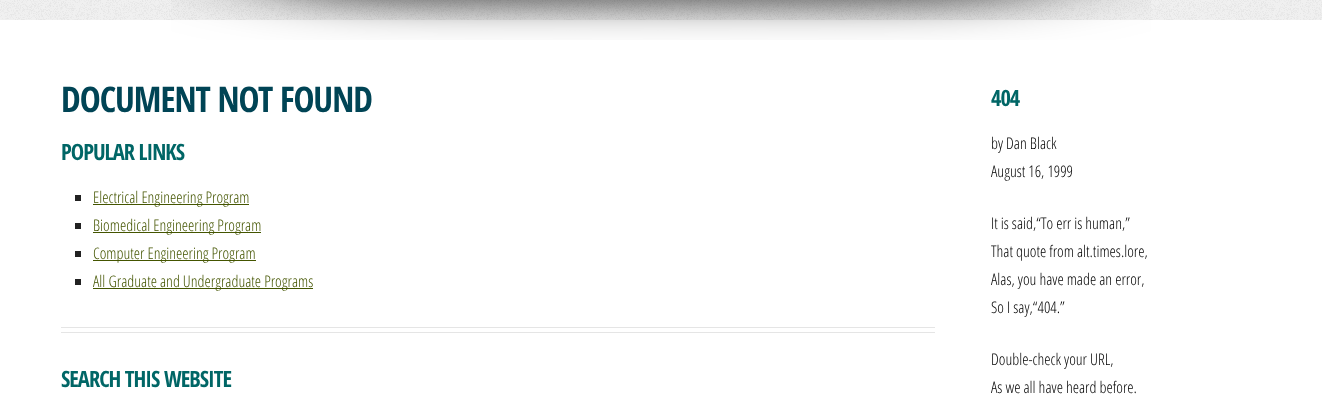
<svg xmlns="http://www.w3.org/2000/svg" width="1322" height="408" viewBox="0 0 1322 408">
  <style>
    .t1 { font: bold 35.25px Open Sans Condensed; letter-spacing: -1px; fill: #045; }
    .t2 { font: bold 22.5px Open Sans Condensed; letter-spacing: -1px; fill: #066; }
    .t3 { font: 300 16px Open Sans Condensed; fill: #450; }
    .t4 { font: 300 16px Open Sans Condensed; fill: #000; }
  </style>
  <rect width="100%" height="100%" fill="#fff"/>
  <image x="0" y="0" width="1322" height="20" href="images/1.png"/>
  <image x="171" y="0" width="980" height="40" href="images/2.png"/>
  <text x="61" y="112" class="t1">DOCUMENT NOT FOUND</text>
  <text x="61" y="160" class="t2">POPULAR LINKS</text>
  <rect x="75" y="195" width="6" height="6" fill="#222"/>
  <rect x="93" y="204" width="156" height="1" fill="#450"/>
  <text x="93" y="203" class="t3">Electrical Engineering Program</text>
  <rect x="75" y="223" width="6" height="6" fill="#222"/>
  <rect x="93" y="232" width="168" height="1" fill="#450"/>
  <text x="93" y="231" class="t3">Biomedical Engineering Program</text>
  <rect x="75" y="251" width="6" height="6" fill="#222"/>
  <rect x="93" y="260" width="163" height="1" fill="#450"/>
  <text x="93" y="259" class="t3">Computer Engineering Program</text>
  <rect x="75" y="279" width="6" height="6" fill="#222"/>
  <rect x="93" y="288" width="220" height="1" fill="#450"/>
  <text x="93" y="287" class="t3">All Graduate and Undergraduate Programs</text>
  <rect x="61" y="327" width="874" height="1" fill="#e5e5e5"/>
  <rect x="61" y="332" width="874" height="1" fill="#e5e5e5"/>
  <text x="61" y="387" class="t2">SEARCH THIS WEBSITE</text>
  <text x="991" y="106" class="t2">404</text>
  <text x="991" y="149" class="t4">by Dan Black</text>
  <text x="991" y="177" class="t4">August 16, 1999</text>
  <text x="991" y="229" class="t4">It is said,“To err is human,”</text>
  <text x="991" y="257" class="t4">That quote from alt.times.lore,</text>
  <text x="991" y="285" class="t4">Alas, you have made an error,</text>
  <text x="991" y="313" class="t4">So I say,“404.”</text>
  <text x="991" y="365" class="t4">Double-check your URL,</text>
  <text x="991" y="393" class="t4">As we all have heard before.</text>
</svg>
